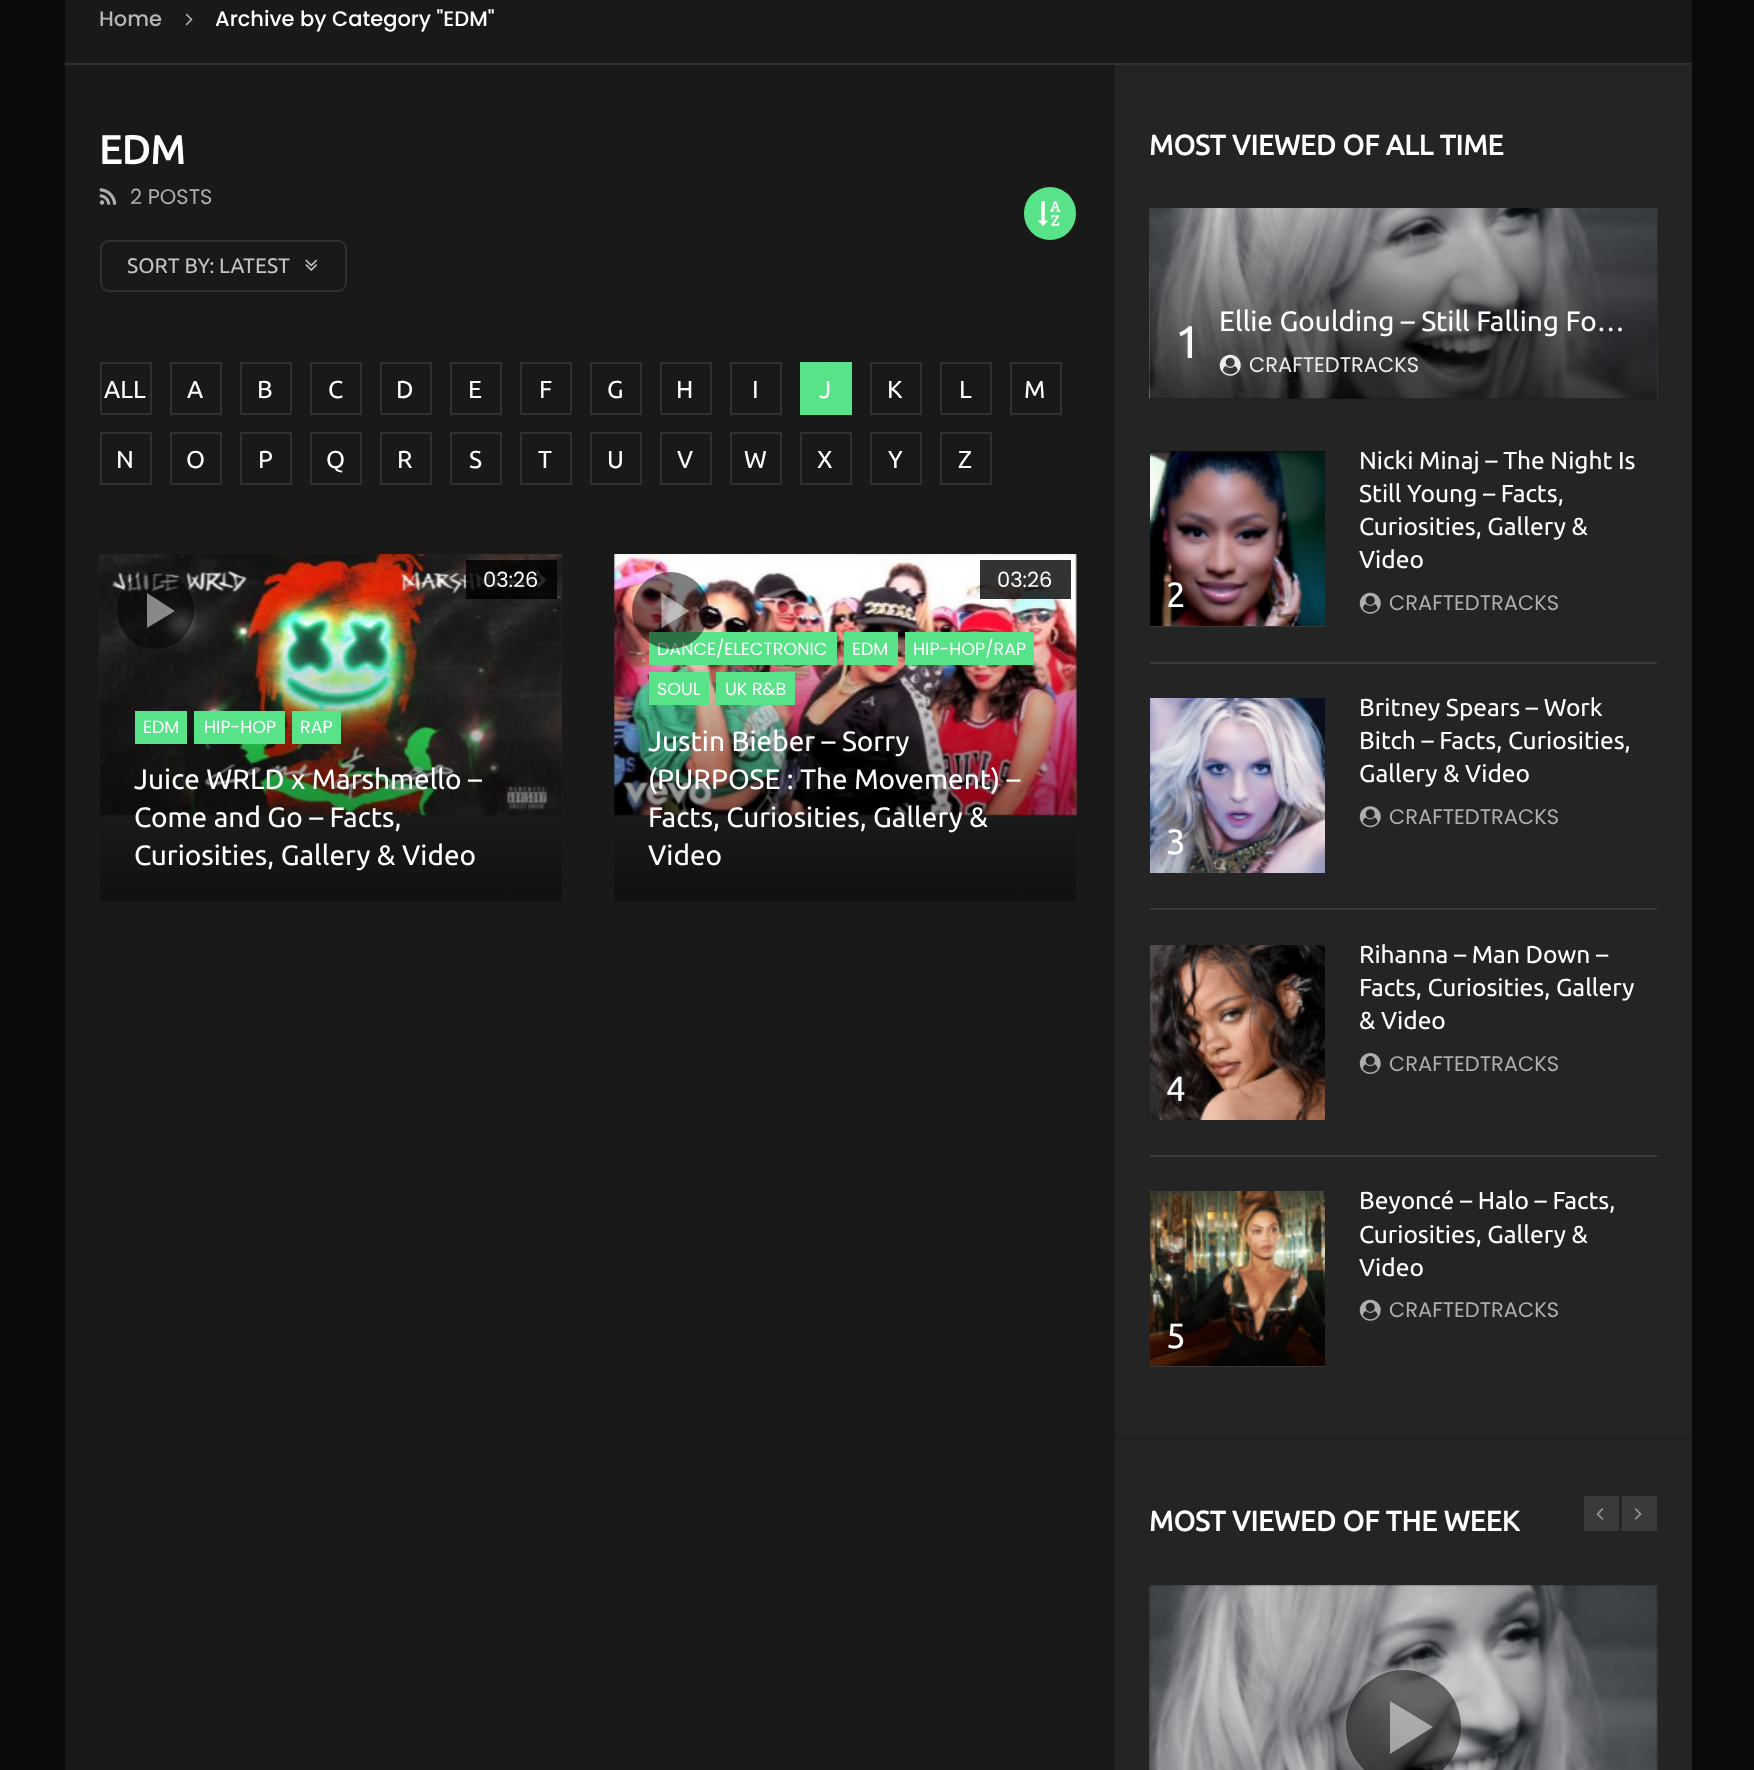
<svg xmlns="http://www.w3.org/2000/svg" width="1754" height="1770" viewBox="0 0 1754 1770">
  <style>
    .t1 { font: 500 21px Poppins; fill: #b5b5b5; }
    .t2 { font: 500 21px Poppins; fill: #fff; }
    .t3 { font: bold 40px Ubuntu; fill: #fff; }
    .t4 { font: 21px Poppins; fill: #aeaeae; }
    .t5 { font: 21px Ubuntu; fill: #c4c4c4; }
    .t6 { font: 24.5px Ubuntu; fill: #fff; }
    .t7 { font: 21px Poppins; fill: #fff; }
    .t8 { font: 17.5px Poppins; fill: #fff; }
    .t9 { font: 28px Ubuntu; fill: #fff; }
    .t10 { font: bold 28px Ubuntu; fill: #fff; }
    .t11 { font: 46px Ubuntu; fill: #fff; }
    .t12 { font: 21px Poppins; fill: #ebebeb; }
    .t13 { font: 35px Ubuntu; fill: #fff; }
  </style>
  <defs>
    <clipPath id="clip1"><rect x="128" y="242" width="191" height="49"/></clipPath>
    <linearGradient id="g1" gradientUnits="userSpaceOnUse" x1="331" y1="625" x2="331" y2="901"><stop offset="0" stop-color="#000" stop-opacity="0"/><stop offset="1" stop-color="#000" stop-opacity="0.66"/></linearGradient>
    <linearGradient id="g2" gradientUnits="userSpaceOnUse" x1="845" y1="625" x2="845" y2="901"><stop offset="0" stop-color="#000" stop-opacity="0"/><stop offset="1" stop-color="#000" stop-opacity="0.66"/></linearGradient>
    <linearGradient id="g3" gradientUnits="userSpaceOnUse" x1="1404" y1="208" x2="1404" y2="399"><stop offset="0" stop-color="#000" stop-opacity="0"/><stop offset="1" stop-color="#000" stop-opacity="0.66"/></linearGradient>
  </defs>
  <rect width="100%" height="100%" fill="#0a0a0a"/>
  <rect x="65" y="0" width="1627" height="1770" fill="#191919"/>
  <rect x="65" y="63" width="1627" height="2" fill="#303030"/>
  <text x="99" y="26" class="t1">Home</text>
  <image x="185" y="13" width="8" height="13" href="images/1.png"/>
  <text x="215" y="26" class="t2">Archive by Category "EDM"</text>
  <text x="99" y="164" class="t3">EDM</text>
  <image x="99" y="188" width="18" height="17" href="images/2.png"/>
  <text x="130" y="204" class="t4">2 POSTS</text>
  <rect x="101" y="241" width="245" height="50" rx="8" fill="none" stroke="#303030" stroke-width="2"/>
  <g clip-path="url(#clip1)">
    <text x="127" y="273" class="t5">SORT BY:</text>
  </g>
  <text x="219" y="273" class="t5">LATEST</text>
  <image x="305" y="259" width="13" height="12" href="images/3.png"/>
  <rect x="1024" y="187" width="52" height="53" rx="26" fill="#58e389"/>
  <image x="1038" y="201" width="23" height="25" href="images/4.png"/>
  <rect x="101" y="363" width="50" height="51" fill="none" stroke="#303030" stroke-width="2"/>
  <text x="104" y="398" class="t6">ALL</text>
  <rect x="171" y="363" width="50" height="51" fill="none" stroke="#303030" stroke-width="2"/>
  <text x="187" y="398" class="t6">A</text>
  <rect x="241" y="363" width="50" height="51" fill="none" stroke="#303030" stroke-width="2"/>
  <text x="257" y="398" class="t6">B</text>
  <rect x="311" y="363" width="50" height="51" fill="none" stroke="#303030" stroke-width="2"/>
  <text x="328" y="398" class="t6">C</text>
  <rect x="381" y="363" width="50" height="51" fill="none" stroke="#303030" stroke-width="2"/>
  <text x="396" y="398" class="t6">D</text>
  <rect x="451" y="363" width="50" height="51" fill="none" stroke="#303030" stroke-width="2"/>
  <text x="468" y="398" class="t6">E</text>
  <rect x="521" y="363" width="50" height="51" fill="none" stroke="#303030" stroke-width="2"/>
  <text x="539" y="398" class="t6">F</text>
  <rect x="591" y="363" width="50" height="51" fill="none" stroke="#303030" stroke-width="2"/>
  <text x="607" y="398" class="t6">G</text>
  <rect x="661" y="363" width="50" height="51" fill="none" stroke="#303030" stroke-width="2"/>
  <text x="676" y="398" class="t6">H</text>
  <rect x="731" y="363" width="50" height="51" fill="none" stroke="#303030" stroke-width="2"/>
  <text x="752" y="398" class="t6">I</text>
  <rect x="800" y="362" width="52" height="53" fill="#58e389"/>
  <text x="819" y="398" class="t6">J</text>
  <rect x="871" y="363" width="50" height="51" fill="none" stroke="#303030" stroke-width="2"/>
  <text x="887" y="398" class="t6">K</text>
  <rect x="941" y="363" width="50" height="51" fill="none" stroke="#303030" stroke-width="2"/>
  <text x="959" y="398" class="t6">L</text>
  <rect x="1011" y="363" width="50" height="51" fill="none" stroke="#303030" stroke-width="2"/>
  <text x="1024" y="398" class="t6">M</text>
  <rect x="101" y="433" width="50" height="51" fill="none" stroke="#303030" stroke-width="2"/>
  <text x="116" y="468" class="t6">N</text>
  <rect x="171" y="433" width="50" height="51" fill="none" stroke="#303030" stroke-width="2"/>
  <text x="186" y="468" class="t6">O</text>
  <rect x="241" y="433" width="50" height="51" fill="none" stroke="#303030" stroke-width="2"/>
  <text x="258" y="468" class="t6">P</text>
  <rect x="311" y="433" width="50" height="51" fill="none" stroke="#303030" stroke-width="2"/>
  <text x="326" y="468" class="t6">Q</text>
  <rect x="381" y="433" width="50" height="51" fill="none" stroke="#303030" stroke-width="2"/>
  <text x="397" y="468" class="t6">R</text>
  <rect x="451" y="433" width="50" height="51" fill="none" stroke="#303030" stroke-width="2"/>
  <text x="469" y="468" class="t6">S</text>
  <rect x="521" y="433" width="50" height="51" fill="none" stroke="#303030" stroke-width="2"/>
  <text x="538" y="468" class="t6">T</text>
  <rect x="591" y="433" width="50" height="51" fill="none" stroke="#303030" stroke-width="2"/>
  <text x="607" y="468" class="t6">U</text>
  <rect x="661" y="433" width="50" height="51" fill="none" stroke="#303030" stroke-width="2"/>
  <text x="677" y="468" class="t6">V</text>
  <rect x="731" y="433" width="50" height="51" fill="none" stroke="#303030" stroke-width="2"/>
  <text x="744" y="468" class="t6">W</text>
  <rect x="801" y="433" width="50" height="51" fill="none" stroke="#303030" stroke-width="2"/>
  <text x="817" y="468" class="t6">X</text>
  <rect x="871" y="433" width="50" height="51" fill="none" stroke="#303030" stroke-width="2"/>
  <text x="888" y="468" class="t6">Y</text>
  <rect x="941" y="433" width="50" height="51" fill="none" stroke="#303030" stroke-width="2"/>
  <text x="958" y="468" class="t6">Z</text>
  <rect x="100" y="555" width="462" height="346" fill="#303030"/>
  <image x="99" y="554" width="463" height="263" href="images/5.png"/>
  <rect x="100" y="634" width="462" height="267" fill="url(#g1)"/>
  <circle cx="155.5" cy="610.5" r="38.5" fill="#00000080"/>
  <path d="M147 628V593L175 611Z" fill="#ffffff80"/>
  <rect x="466" y="560" width="91" height="39" fill="#000000cc"/>
  <text x="483" y="587" class="t7">03:26</text>
  <rect x="135" y="711" width="52" height="33" fill="#58e389"/>
  <text x="143" y="733" class="t8">EDM</text>
  <rect x="194" y="711" width="91" height="33" fill="#58e389"/>
  <text x="204" y="733" class="t8">HIP-HOP</text>
  <rect x="292" y="711" width="49" height="33" fill="#58e389"/>
  <text x="300" y="733" class="t8">RAP</text>
  <text x="134" y="789" class="t9">Juice WRLD x Marshmello –</text>
  <text x="134" y="827" class="t9">Come and Go – Facts,</text>
  <text x="134" y="865" class="t9">Curiosities, Gallery &amp; Video</text>
  <rect x="614" y="555" width="462" height="346" fill="#303030"/>
  <image x="614" y="554" width="463" height="263" href="images/6.png"/>
  <rect x="614" y="634" width="462" height="267" fill="url(#g2)"/>
  <rect x="649" y="632" width="188" height="33" fill="#58e389"/>
  <text x="657" y="655" class="t8">DANCE/ELECTRONIC</text>
  <circle cx="670.5" cy="610.5" r="38.5" fill="#00000080"/>
  <path d="M661.5 628V593L689.5 611Z" fill="#ffffff80"/>
  <rect x="980" y="560" width="91" height="39" fill="#000000cc"/>
  <text x="997" y="587" class="t7">03:26</text>
  <rect x="844" y="632" width="54" height="33" fill="#58e389"/>
  <text x="852" y="655" class="t8">EDM</text>
  <rect x="905" y="632" width="129" height="33" fill="#58e389"/>
  <text x="913" y="655" class="t8">HIP-HOP/RAP</text>
  <rect x="649" y="672" width="60" height="33" fill="#58e389"/>
  <text x="657" y="695" class="t8">SOUL</text>
  <rect x="716" y="672" width="79" height="33" fill="#58e389"/>
  <text x="725" y="695" class="t8">UK R&amp;B</text>
  <text x="648" y="751" class="t9">Justin Bieber – Sorry</text>
  <text x="648" y="789" class="t9">(PURPOSE : The Movement) –</text>
  <text x="648" y="827" class="t9">Facts, Curiosities, Gallery &amp;</text>
  <text x="648" y="865" class="t9">Video</text>
  <rect x="1115" y="65" width="577" height="1705" fill="#242424"/>
  <rect x="1115" y="1437" width="577" height="4" fill="#202020"/>
  <text x="1149" y="155" class="t10">MOST VIEWED OF ALL TIME</text>
  <rect x="1150" y="208" width="507" height="191" fill="#3a3a3a"/>
  <image x="1149" y="208" width="509" height="191" href="images/7.png"/>
  <rect x="1150" y="214" width="507" height="185" fill="url(#g3)"/>
  <text x="1219" y="331" class="t9">Ellie Goulding – Still Falling Fo…</text>
  <text x="1175" y="358" class="t11">1</text>
  <image x="1219" y="354" width="22" height="22" href="images/8.png"/>
  <text x="1249" y="372" class="t12">CRAFTEDTRACKS</text>
  <rect x="1150" y="662" width="507" height="2" fill="#3a3a3a"/>
  <rect x="1150" y="626" width="175" height="1" fill="#3a3a3a"/>
  <image x="1150" y="451" width="175" height="175" href="images/9.png"/>
  <text x="1166" y="607" class="t13">2</text>
  <text x="1359" y="469" class="t6">Nicki Minaj – The Night Is</text>
  <text x="1359" y="502" class="t6">Still Young – Facts,</text>
  <text x="1359" y="535" class="t6">Curiosities, Gallery &amp;</text>
  <text x="1359" y="568" class="t6">Video</text>
  <image x="1359" y="592" width="22" height="22" href="images/10.png"/>
  <text x="1389" y="610" class="t4">CRAFTEDTRACKS</text>
  <rect x="1150" y="908" width="507" height="2" fill="#3a3a3a"/>
  <text x="1359" y="716" class="t6">Britney Spears – Work</text>
  <text x="1359" y="749" class="t6">Bitch – Facts, Curiosities,</text>
  <text x="1359" y="782" class="t6">Gallery &amp; Video</text>
  <image x="1359" y="806" width="22" height="22" href="images/11.png"/>
  <text x="1389" y="824" class="t4">CRAFTEDTRACKS</text>
  <image x="1150" y="698" width="175" height="175" href="images/12.png"/>
  <text x="1166" y="854" class="t13">3</text>
  <rect x="1150" y="1155" width="507" height="2" fill="#3a3a3a"/>
  <text x="1359" y="963" class="t6">Rihanna – Man Down –</text>
  <text x="1359" y="996" class="t6">Facts, Curiosities, Gallery</text>
  <text x="1359" y="1029" class="t6">&amp; Video</text>
  <image x="1359" y="1053" width="22" height="21" href="images/13.png"/>
  <text x="1389" y="1071" class="t4">CRAFTEDTRACKS</text>
  <image x="1150" y="945" width="175" height="175" href="images/14.png"/>
  <text x="1166" y="1101" class="t13">4</text>
  <text x="1359" y="1209" class="t6">Beyoncé – Halo – Facts,</text>
  <text x="1359" y="1243" class="t6">Curiosities, Gallery &amp;</text>
  <text x="1359" y="1276" class="t6">Video</text>
  <image x="1359" y="1299" width="22" height="22" href="images/10.png"/>
  <text x="1389" y="1317" class="t4">CRAFTEDTRACKS</text>
  <rect x="1150" y="1366" width="175" height="1" fill="#3a3a3a"/>
  <image x="1150" y="1191" width="175" height="175" href="images/15.png"/>
  <text x="1166" y="1348" class="t13">5</text>
  <text x="1149" y="1531" class="t10">MOST VIEWED OF THE WEEK</text>
  <rect x="1584" y="1496" width="35" height="35" fill="#3a3a3a"/>
  <image x="1596" y="1508" width="8" height="12" href="images/16.png"/>
  <rect x="1622" y="1496" width="35" height="35" fill="#3a3a3a"/>
  <image x="1634" y="1508" width="8" height="12" href="images/17.png"/>
  <image x="1149" y="1585" width="509" height="185" href="images/18.png"/>
  <circle cx="1403.5" cy="1727.5" r="57.5" fill="#00000080"/>
  <path d="M1390 1754V1701L1433 1727Z" fill="#ffffff80"/>
</svg>
